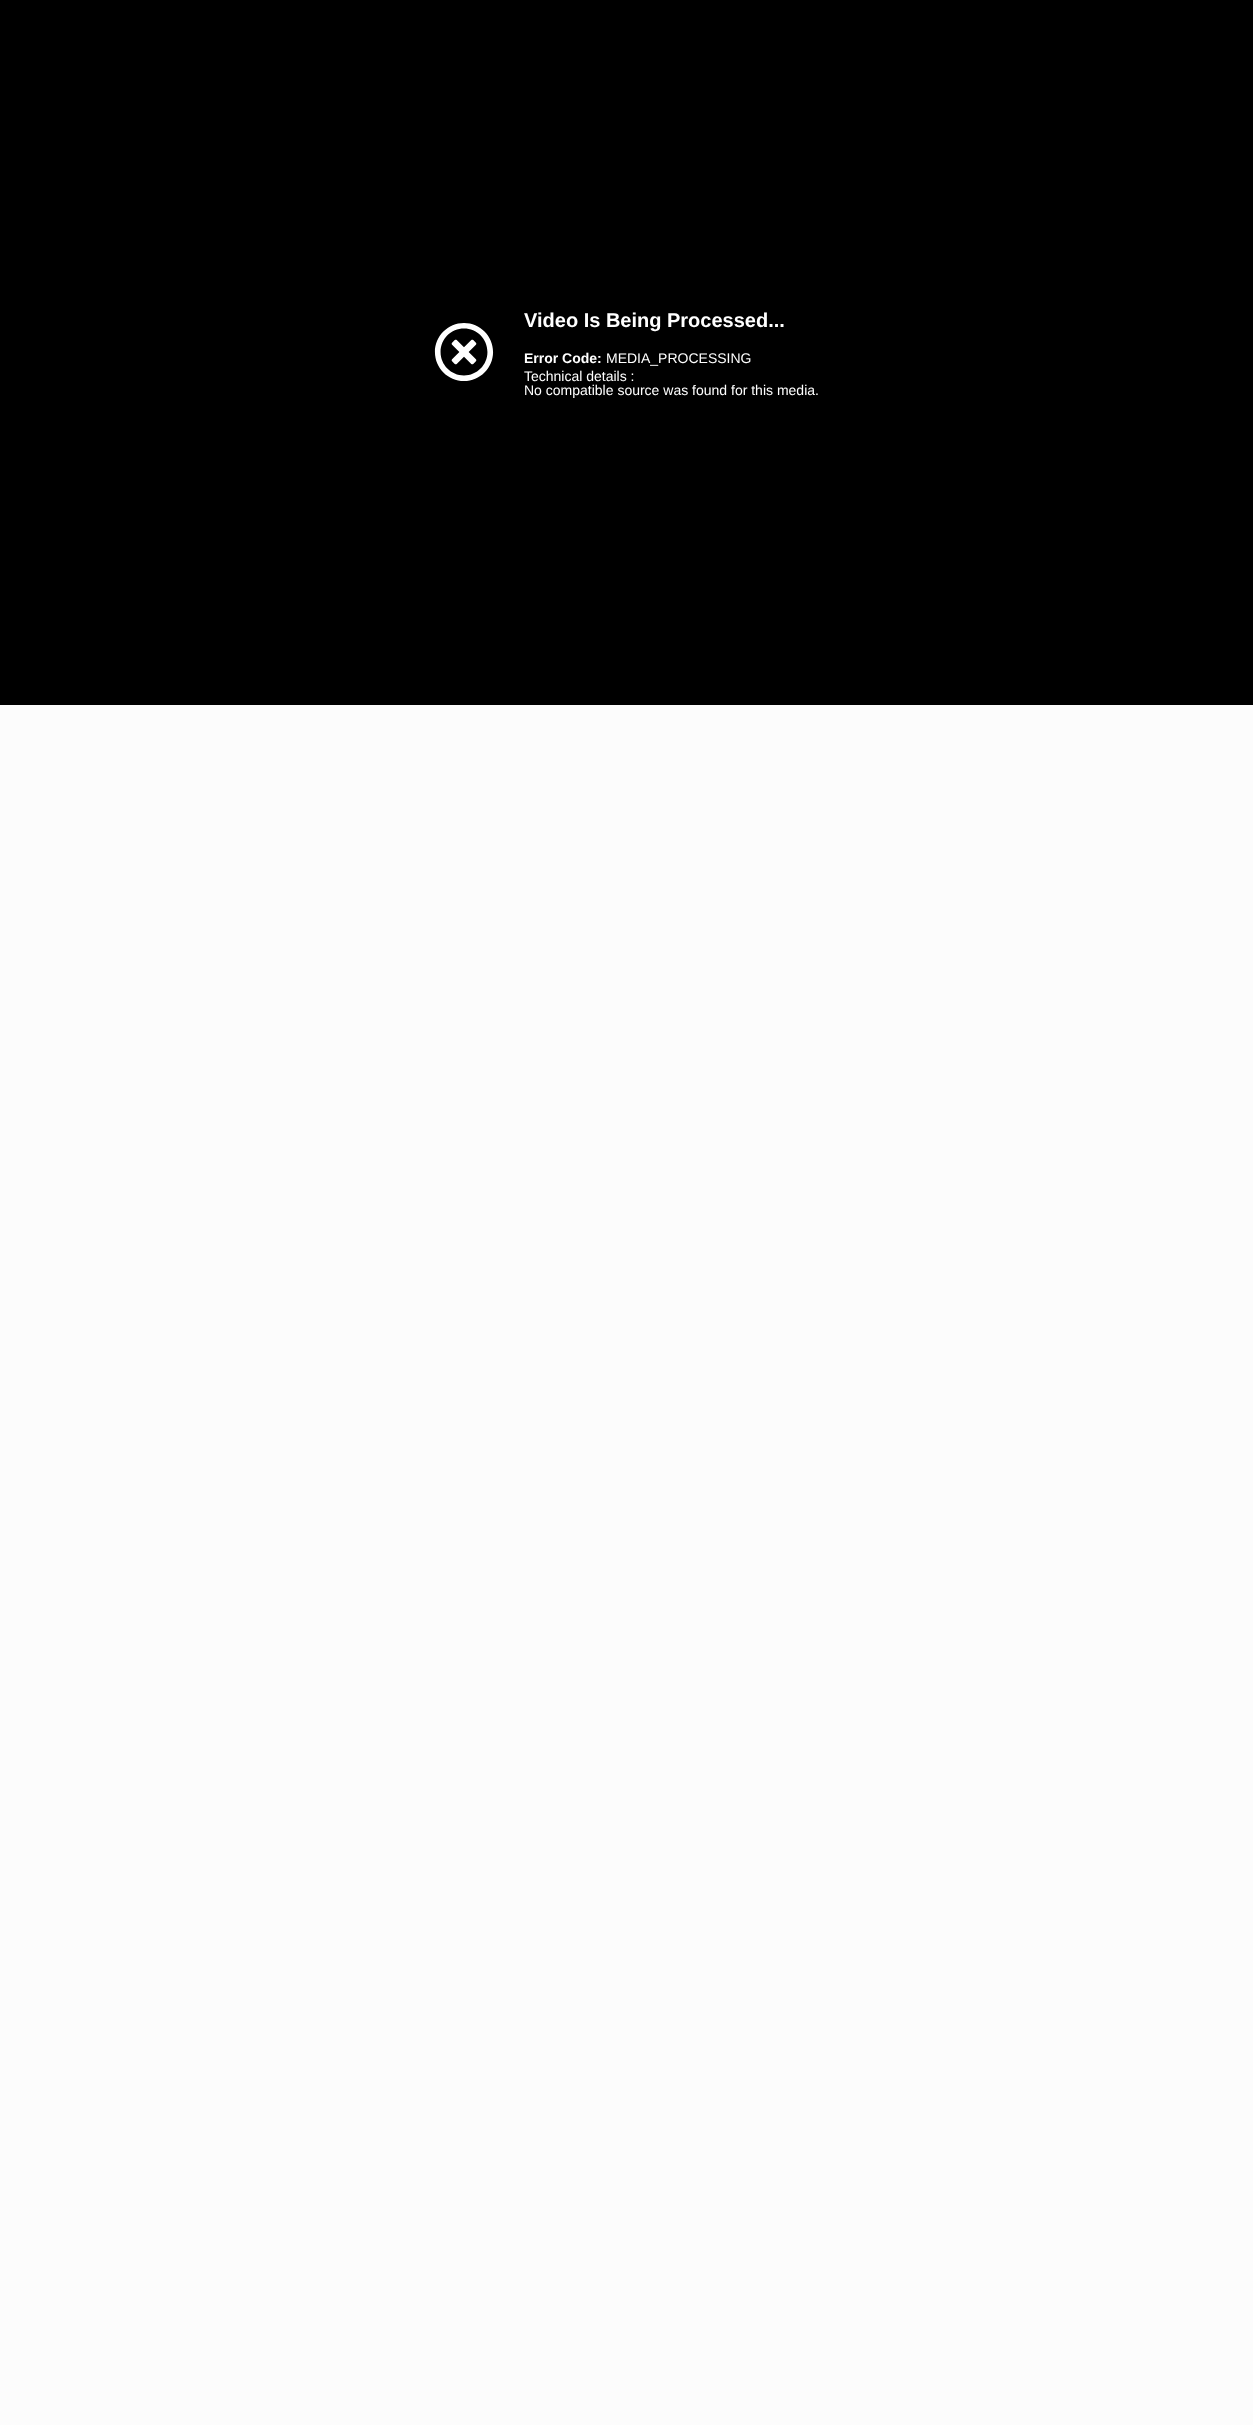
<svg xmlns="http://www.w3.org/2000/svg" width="1253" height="2425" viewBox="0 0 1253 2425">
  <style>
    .t1 { font: bold 20px Liberation Sans; fill: #fff; }
    .t2 { font: bold 14px Liberation Sans; fill: #fff; }
    .t3 { font: 14px Liberation Sans; fill: #fff; }
  </style>
  <rect width="100%" height="100%" fill="#fcfcfc"/>
  <rect x="0" y="0" width="1253" height="705" fill="#000"/>
  <image x="434" y="323" width="60" height="58" href="images/1.png"/>
  <text x="524" y="327" class="t1">Video Is Being Processed...</text>
  <text x="524" y="363" class="t2">Error Code:</text>
  <text x="606" y="363" class="t3">MEDIA_PROCESSING</text>
  <text x="524" y="381" class="t3">Technical details :</text>
  <text x="524" y="395" class="t3">No compatible source was found for this media.</text>
</svg>
